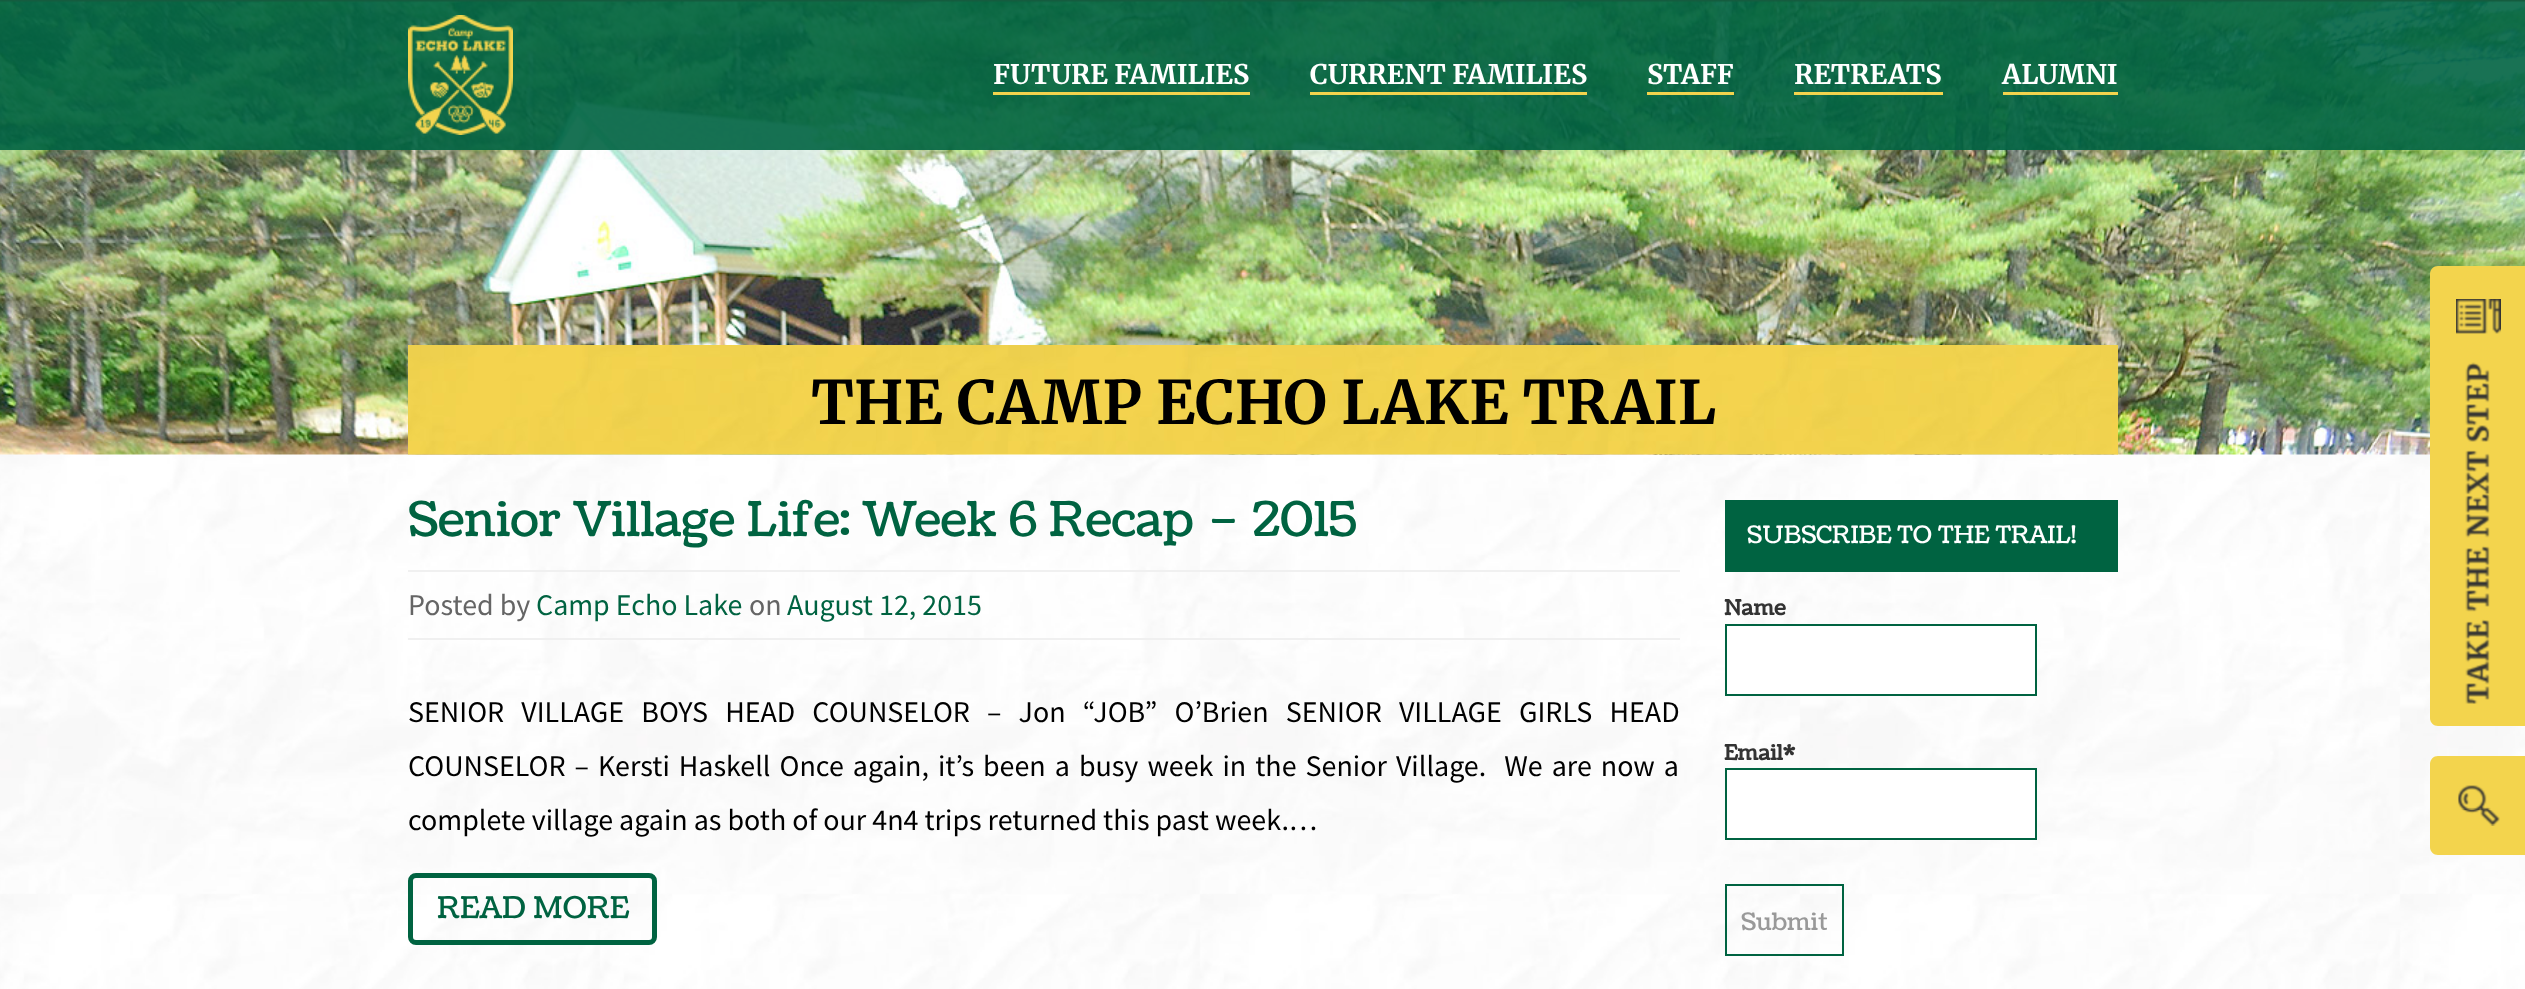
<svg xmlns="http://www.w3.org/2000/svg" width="2525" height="989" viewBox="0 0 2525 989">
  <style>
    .t1 { font: bold 27px Merriweather; fill: #fff; }
    .t2 { font: bold 60px Merriweather; fill: #000; }
    .t3 { font: 48px Coustard; fill: #006341; }
    .t4 { font: 30px Source Sans Pro; fill: #656565; }
    .t5 { font: 30px Source Sans Pro; fill: #006341; }
    .t6 { font: 30px Source Sans Pro; fill: #000; }
    .t7 { font: 30px Coustard; fill: #006341; }
    .t8 { font: 24px Coustard; fill: #fff; }
    .t9 { font: bold 21px Coustard; fill: #333; }
    .t10 { font: 24px Coustard; fill: #999; }
  </style>
  <rect width="100%" height="100%" fill="#fff"/>
  <image x="0" y="454" width="2525" height="535" href="images/1.png"/>
  <image x="0" y="0" width="2525" height="455" href="images/2.png"/>
  <rect x="0" y="0" width="2525" height="150" fill="#006341e6"/>
  <image x="408" y="15" width="105" height="120" href="images/3.png"/>
  <text x="993" y="84" class="t1">FUTURE FAMILIES</text>
  <rect x="993" y="92" width="257" height="3" fill="#f3d34d"/>
  <text x="1310" y="84" class="t1">CURRENT FAMILIES</text>
  <rect x="1310" y="92" width="277" height="3" fill="#f3d34d"/>
  <text x="1647" y="84" class="t1">STAFF</text>
  <rect x="1647" y="92" width="87" height="3" fill="#f3d34d"/>
  <text x="1794" y="84" class="t1">RETREATS</text>
  <rect x="1794" y="92" width="149" height="3" fill="#f3d34d"/>
  <text x="2002" y="84" class="t1">ALUMNI</text>
  <rect x="2003" y="92" width="115" height="3" fill="#f3d34d"/>
  <image x="408" y="345" width="1710" height="110" href="images/4.png"/>
  <text x="811" y="424" class="t2">THE CAMP ECHO LAKE TRAIL</text>
  <text x="408" y="536" class="t3">Senior Village Life: Week 6 Recap – 2015</text>
  <rect x="408" y="570" width="1272" height="2" fill="#f0f0f0"/>
  <rect x="408" y="638" width="1272" height="2" fill="#f0f0f0"/>
  <text x="408" y="615" class="t4">Posted by</text>
  <text x="536" y="615" class="t5">Camp Echo Lake</text>
  <text x="749" y="615" class="t4">on</text>
  <text x="787" y="615" class="t5">August 12, 2015</text>
  <text x="408" y="722" word-spacing="11.1" class="t6">SENIOR VILLAGE BOYS HEAD COUNSELOR – Jon “JOB” O’Brien SENIOR VILLAGE GIRLS HEAD</text>
  <text x="408" y="776" word-spacing="3" class="t6" xml:space="preserve">COUNSELOR – Kersti Haskell Once again, it’s been a busy week in the Senior Village.  We are now a</text>
  <text x="408" y="830" class="t6">complete village again as both of our 4n4 trips returned this past week.…</text>
  <rect x="410.5" y="875.5" width="244" height="67" rx="5.5" fill="none" stroke="#006341" stroke-width="5"/>
  <text x="437" y="918" class="t7">READ MORE</text>
  <rect x="1725" y="500" width="393" height="72" fill="#006341"/>
  <text x="1747" y="543" class="t8">SUBSCRIBE TO THE TRAIL!</text>
  <text x="1724" y="615" class="t9">Name</text>
  <rect x="1726" y="625" width="310" height="70" fill="#fff" stroke="#006341" stroke-width="2"/>
  <text x="1724" y="760" class="t9">Email*</text>
  <rect x="1726" y="769" width="310" height="70" fill="#fff" stroke="#006341" stroke-width="2"/>
  <rect x="1726" y="885" width="117" height="70" fill="none" stroke="#006341" stroke-width="2"/>
  <text x="1741" y="930" class="t10">Submit</text>
  <path d="M2438 266H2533V726H2438C2433.5 726 2430 722.5 2430 718V274C2430 269.5 2433.5 266 2438 266Z" fill="#f3d44d"/>
  <image x="2456" y="299" width="45" height="35" href="images/5.png"/>
  <image x="2465" y="362" width="25" height="342" href="images/6.png"/>
  <path d="M2438 756H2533V855H2438C2433.5 855 2430 851.5 2430 847V764C2430 759.5 2433.5 756 2438 756Z" fill="#f3d44d"/>
  <image x="2458" y="785" width="42" height="41" href="images/7.png"/>
</svg>
